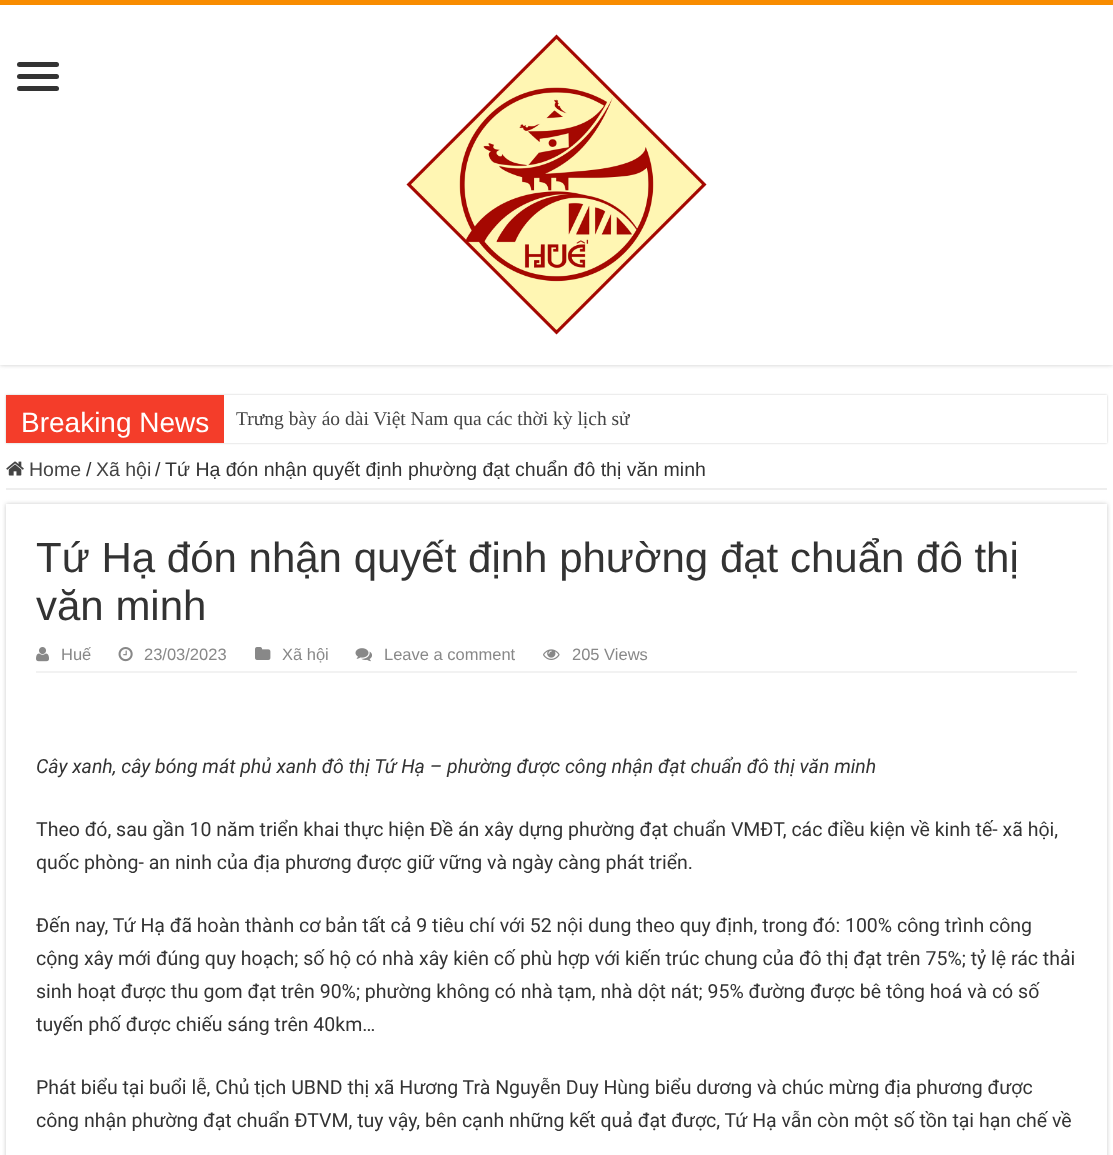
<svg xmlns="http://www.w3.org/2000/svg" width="1113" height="1155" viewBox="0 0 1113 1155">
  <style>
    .t1 { font: 28px Liberation Sans; fill: #fff; }
    .t2 { font: 19.5px Liberation Serif; fill: #444; }
    .t3 { font: 19.5px Liberation Sans; fill: #444; }
    .t4 { font: 19.5px Liberation Sans; fill: #333; }
    .t5 { font: 42px Liberation Sans; fill: #333; }
    .t6 { font: 16.5px Liberation Sans; fill: #888; }
    .t7 { font: italic 19.5px Roboto; fill: #333; }
    .t8 { font: 19.5px Roboto; fill: #333; }
  </style>
  <defs>
    <clipPath id="clip1"><path d="M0 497H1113V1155H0ZM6 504H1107V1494H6Z" clip-rule="evenodd"/></clipPath>
  </defs>
  <rect width="100%" height="100%" fill="#fff"/>
  <rect x="0" y="0" width="1113" height="365" fill="#cacaca" filter="blur(2px)"/>
  <rect x="0" y="5" width="1113" height="360" fill="#fff"/>
  <rect x="0" y="0" width="1113" height="5" fill="#f88c00"/>
  <rect x="17" y="62" width="42" height="5" rx="2.5" fill="#333"/>
  <rect x="17" y="74" width="42" height="5" rx="2.5" fill="#333"/>
  <rect x="17" y="86" width="42" height="5" rx="2.5" fill="#333"/>
  <image x="406" y="34" width="301" height="301" href="images/1.png"/>
  <rect x="6" y="395" width="1101" height="48" fill="#cacaca" filter="blur(1px)"/>
  <rect x="224" y="395" width="883" height="48" fill="#fff"/>
  <rect x="6" y="395" width="218" height="48" fill="#f43d2a"/>
  <text x="21" y="432" class="t1">Breaking News</text>
  <text x="236" y="425" class="t2">Trưng bày áo dài Việt Nam qua các thời kỳ lịch sử</text>
  <rect x="6" y="488" width="1101" height="2" fill="#eee"/>
  <image x="6" y="461" width="18" height="15" href="images/2.png"/>
  <text x="29" y="476" class="t3">Home</text>
  <text x="86" y="476" class="t4">/</text>
  <text x="96" y="476" class="t3">Xã hội</text>
  <text x="155" y="476" class="t4">/</text>
  <text x="165" y="476" class="t4">Tứ Hạ đón nhận quyết định phường đạt chuẩn đô thị văn minh</text>
  <g clip-path="url(#clip1)">
    <rect x="6" y="504" width="1101" height="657" fill="#cacaca" filter="blur(2px)"/>
  </g>
  <text x="36" y="572" class="t5">Tứ Hạ đón nhận quyết định phường đạt chuẩn đô thị</text>
  <text x="36" y="620" class="t5">văn minh</text>
  <rect x="36" y="671" width="1041" height="2" fill="#f2f2f2"/>
  <image x="36" y="647" width="13" height="15" href="images/3.png"/>
  <text x="61" y="660" class="t6">Huế</text>
  <image x="118" y="647" width="15" height="15" href="images/4.png"/>
  <text x="144" y="660" class="t6">23/03/2023</text>
  <image x="255" y="647" width="16" height="13" href="images/5.png"/>
  <text x="282" y="660" class="t6">Xã hội</text>
  <image x="355" y="648" width="17" height="14" href="images/6.png"/>
  <text x="384" y="660" class="t6">Leave a comment</text>
  <image x="543" y="649" width="17" height="11" href="images/7.png"/>
  <text x="572" y="660" class="t6">205 Views</text>
  <text x="36" y="773" class="t7">Cây xanh, cây bóng mát phủ xanh đô thị Tứ Hạ – phường được công nhận đạt chuẩn đô thị văn minh</text>
  <text x="36" y="836" class="t8">Theo đó, sau gần 10 năm triển khai thực hiện Đề án xây dựng phường đạt chuẩn VMĐT, các điều kiện về kinh tế- xã hội,</text>
  <text x="36" y="869" class="t8">quốc phòng- an ninh của địa phương được giữ vững và ngày càng phát triển.</text>
  <text x="36" y="932" class="t8">Đến nay, Tứ Hạ đã hoàn thành cơ bản tất cả 9 tiêu chí với 52 nội dung theo quy định, trong đó: 100% công trình công</text>
  <text x="36" y="965" class="t8">cộng xây mới đúng quy hoạch; số hộ có nhà xây kiên cố phù hợp với kiến trúc chung của đô thị đạt trên 75%; tỷ lệ rác thải</text>
  <text x="36" y="998" class="t8">sinh hoạt được thu gom đạt trên 90%; phường không có nhà tạm, nhà dột nát; 95% đường được bê tông hoá và có số</text>
  <text x="36" y="1031" class="t8">tuyến phố được chiếu sáng trên 40km…</text>
  <text x="36" y="1094" class="t8">Phát biểu tại buổi lễ, Chủ tịch UBND thị xã Hương Trà Nguyễn Duy Hùng biểu dương và chúc mừng địa phương được</text>
  <text x="36" y="1127" class="t8">công nhận phường đạt chuẩn ĐTVM, tuy vậy, bên cạnh những kết quả đạt được, Tứ Hạ vẫn còn một số tồn tại hạn chế về</text>
</svg>
